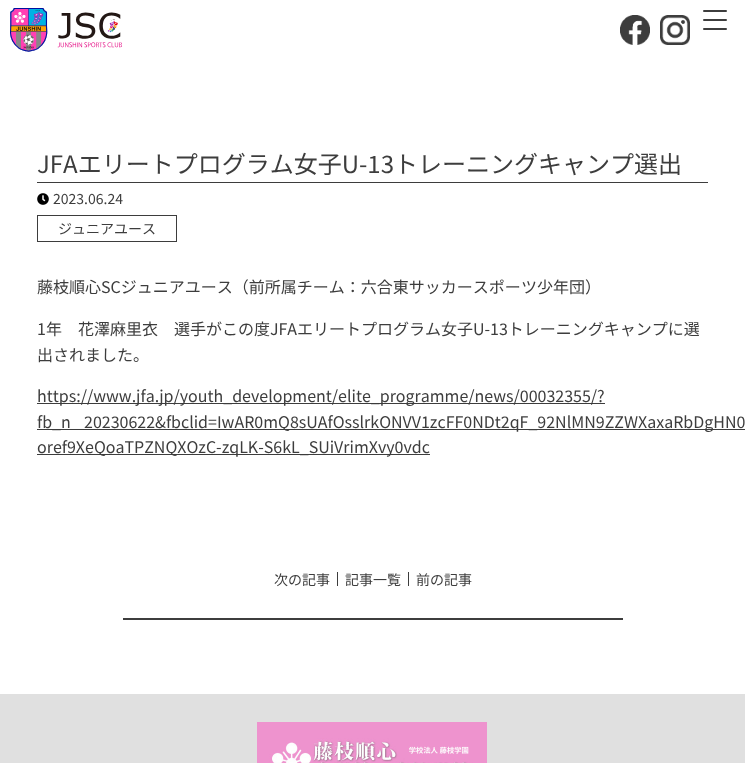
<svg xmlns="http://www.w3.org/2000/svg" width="745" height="763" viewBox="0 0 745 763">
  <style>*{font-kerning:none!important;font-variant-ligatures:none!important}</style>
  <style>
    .t1 { font: 24px Noto Sans JP; fill: #3d3d3d; }
    .t2 { font: 14px Noto Sans JP; fill: #3d3d3d; }
    .t3 { font: 16px Noto Sans JP; fill: #3d3d3d; }
  </style>
  <rect width="100%" height="100%" fill="#fff"/>
  <image x="10" y="8" width="112" height="44" href="images/1.png"/>
  <image x="620" y="15" width="30" height="30" href="images/2.png"/>
  <image x="660" y="15" width="30" height="30" href="images/3.png"/>
  <rect x="703" y="10" width="24" height="2" rx="1" fill="#3d3d3d"/>
  <rect x="703" y="19" width="24" height="2" rx="1" fill="#3d3d3d"/>
  <rect x="703" y="28" width="24" height="2" rx="1" fill="#3d3d3d"/>
  <rect x="37" y="182" width="671" height="1" fill="#3d3d3d"/>
  <text x="37" y="173" class="t1">JFAエリートプログラム女子U-13トレーニングキャンプ選出</text>
  <image x="37" y="193" width="12" height="12" href="images/4.png"/>
  <text x="53" y="204" class="t2">2023.06.24</text>
  <rect x="37.5" y="215.5" width="139" height="26" fill="none" stroke="#3d3d3d"/>
  <text x="58" y="234" class="t2">ジュニアユース</text>
  <text x="37" y="293" class="t3">藤枝順心SCジュニアユース（前所属チーム：六合東サッカースポー</text>
  <text x="521" y="293" class="t3">ツ少年団）</text>
  <text x="37" y="335" class="t3">1年　花澤麻里衣　選手がこの度JFAエリートプログラム女子U-13トレーニングキャンプに選</text>
  <text x="37" y="361" class="t3">出されました。</text>
  <rect x="37" y="403" width="568" height="1" fill="#3d3d3d"/>
  <text x="37" y="402" class="t3">https://www.jfa.jp/youth_development/elite_programme/news/00032355/?</text>
  <rect x="37" y="429" width="708" height="1" fill="#3d3d3d"/>
  <text x="37" y="428" class="t3">fb_n</text>
  <text x="84" y="428" class="t3">20230622&amp;fbclid=IwAR0mQ8sUAfOsslrkONVV1zcFF0NDt2qF_92NlMN9ZZWXaxaRbDgHN0</text>
  <rect x="37" y="454" width="393" height="1" fill="#3d3d3d"/>
  <text x="37" y="453" class="t3">oref9XeQoaTPZNQXOzC-zqLK-S6kL_SUiVrimXvy0vdc</text>
  <text x="274" y="585" class="t2">次の記事</text>
  <rect x="408" y="572" width="1" height="14" fill="#3d3d3d"/>
  <rect x="337" y="572" width="1" height="14" fill="#3d3d3d"/>
  <text x="345" y="585" class="t2">記事一覧</text>
  <text x="416" y="585" class="t2">前の記事</text>
  <rect x="123" y="618" width="500" height="2" fill="#3d3d3d"/>
  <rect x="0" y="694" width="745" height="69" fill="#e0e0e0"/>
  <image x="257" y="722" width="230" height="41" href="images/5.png"/>
</svg>
